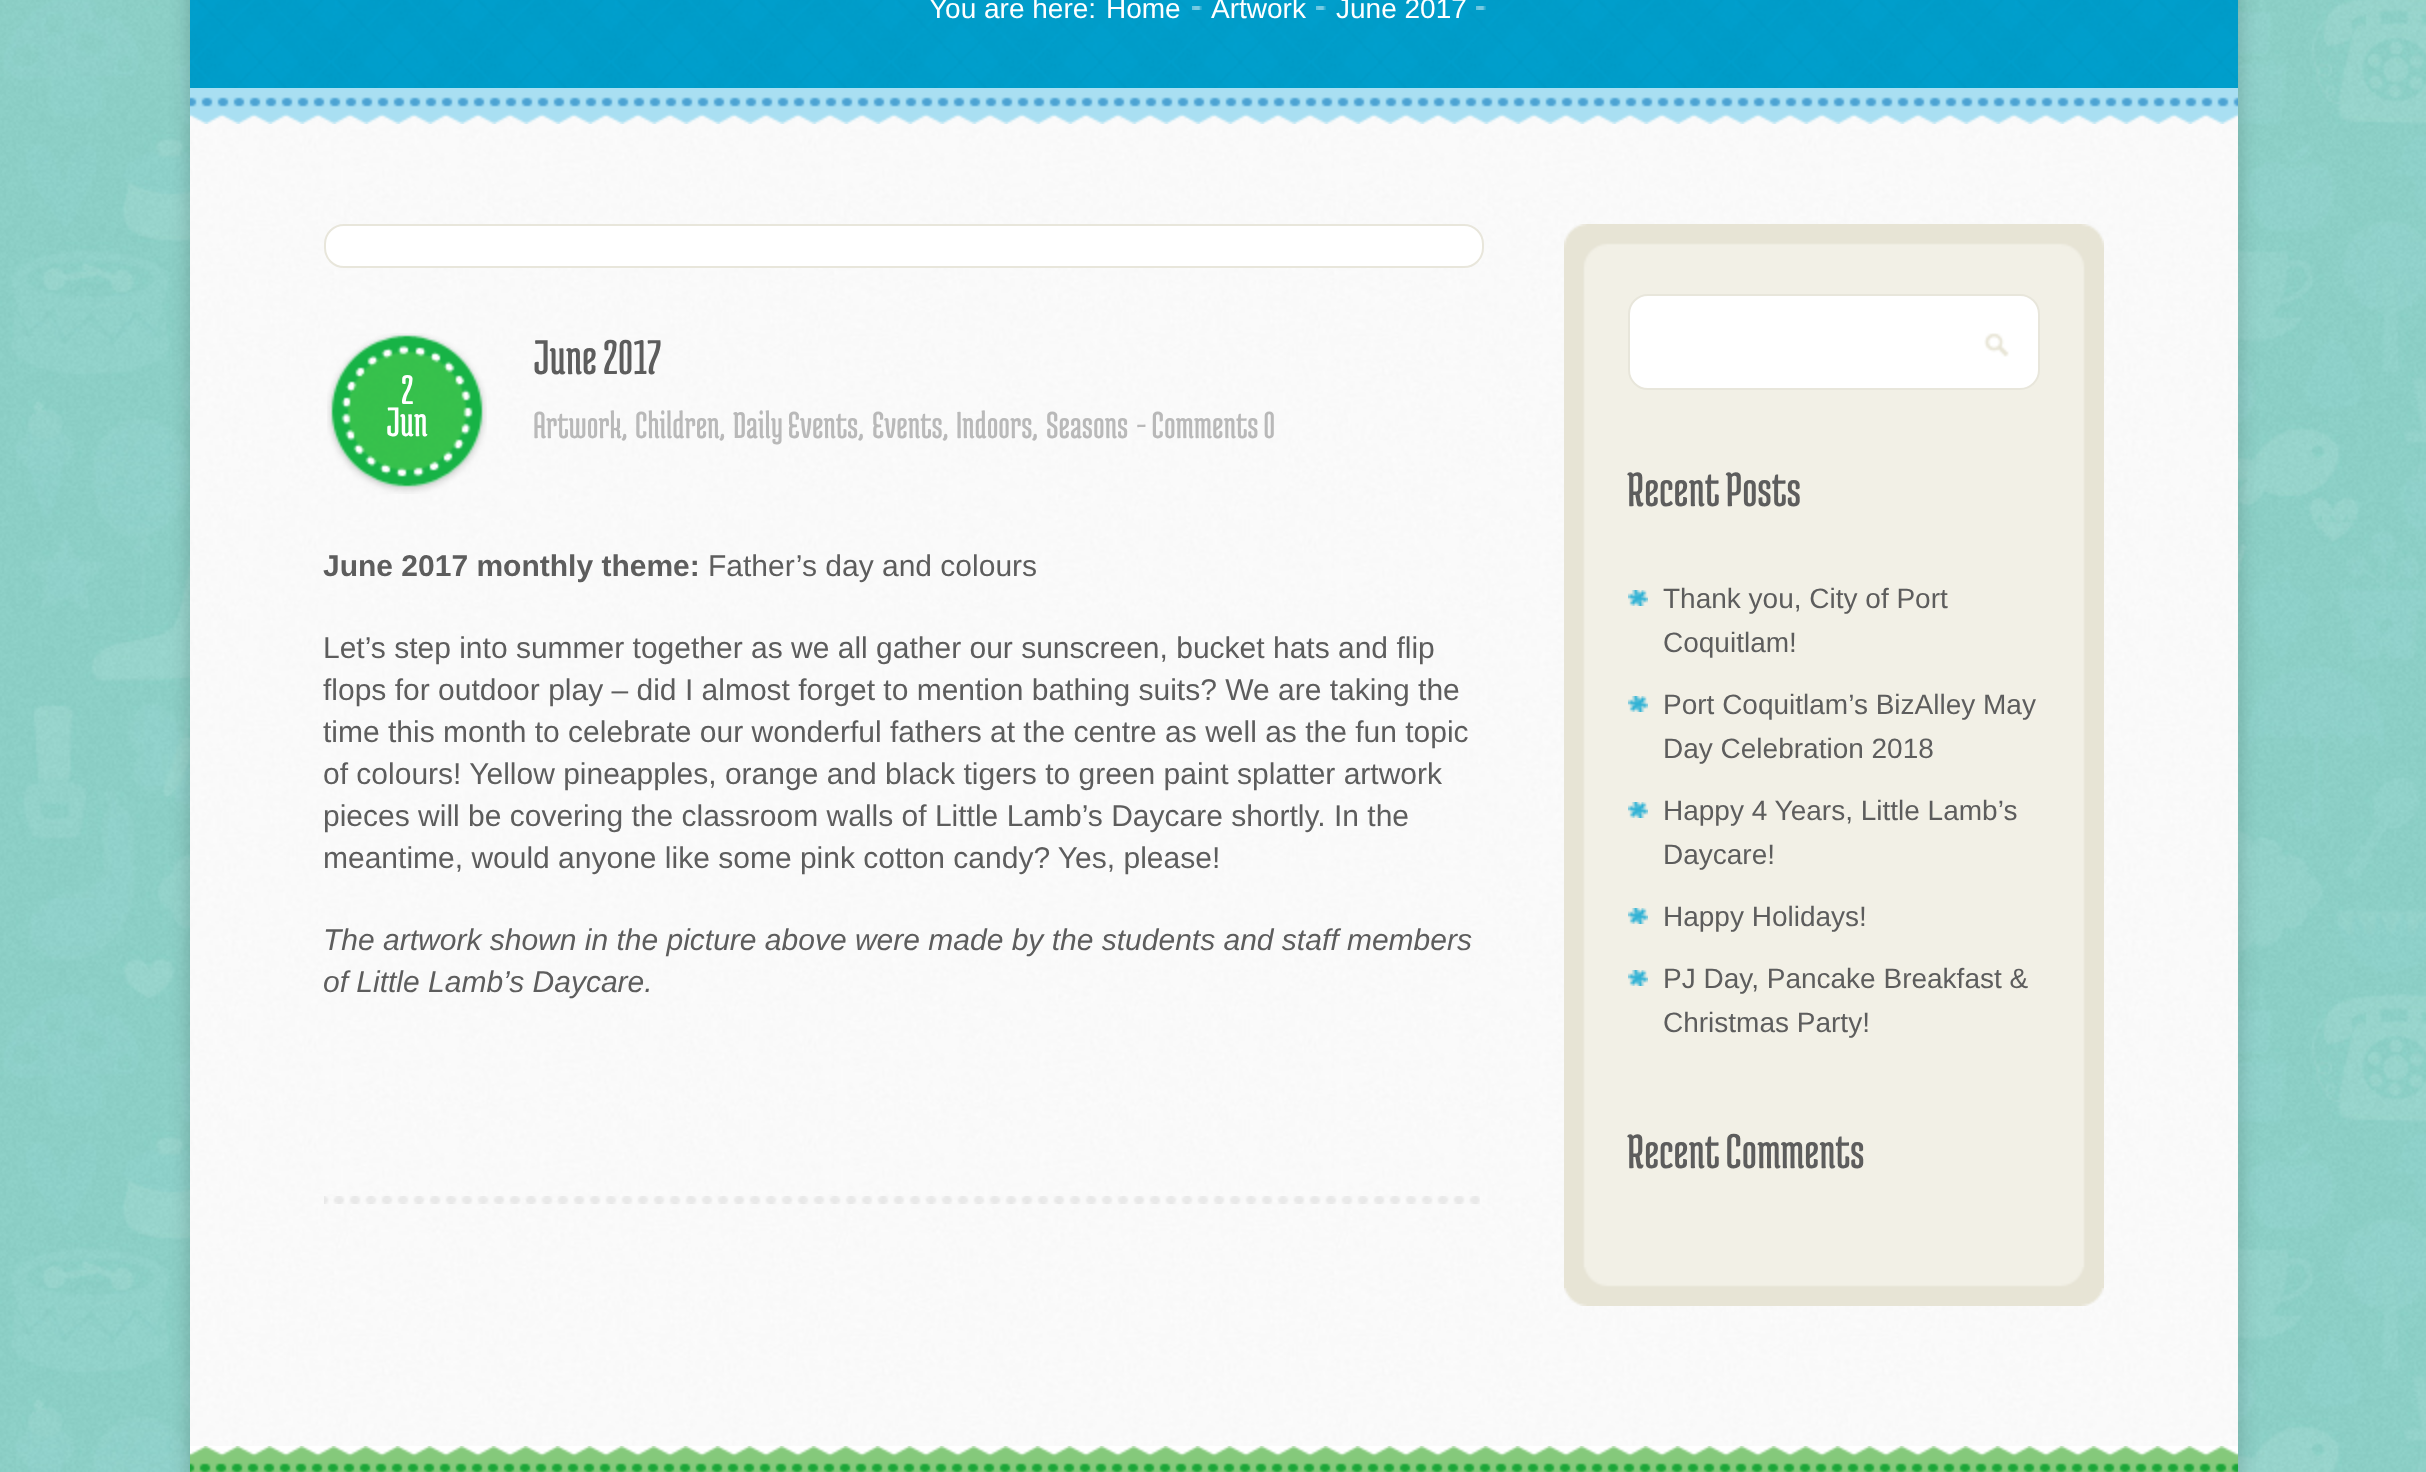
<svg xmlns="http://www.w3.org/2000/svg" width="2426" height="1472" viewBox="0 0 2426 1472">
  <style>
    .t1 { font: 28px Liberation Sans; fill: #fff; }
    .t2 { font: 44px Medula One; fill: #fff; }
    .t3 { font: 52px Medula One; fill: #5d5d5d; }
    .t4 { font: 40px Medula One; fill: #b9b9b9; }
    .t5 { font: bold 30px Liberation Sans; fill: #5d5d5d; }
    .t6 { font: 30px Liberation Sans; fill: #5d5d5d; }
    .t7 { font: italic 30px Liberation Sans; fill: #5d5d5d; }
    .t8 { font: 28px Liberation Sans; fill: #5d5d5d; }
  </style>
  <rect width="100%" height="100%" fill="#fff"/>
  <image x="0" y="0" width="2426" height="1472" href="images/1.png"/>
  <rect x="190" y="-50" width="2048" height="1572" rx="20" fill="#00000033" filter="blur(10px)"/>
  <image x="190" y="0" width="2048" height="88" href="images/2.png"/>
  <text x="929" y="18" class="t1">You are here:</text>
  <image x="1192" y="6" width="10" height="4" href="images/3.png"/>
  <text x="1106" y="18" class="t1">Home</text>
  <image x="1316" y="6" width="10" height="4" href="images/4.png"/>
  <text x="1211" y="18" class="t1">Artwork</text>
  <image x="1476" y="6" width="10" height="4" href="images/5.png"/>
  <text x="1336" y="18" class="t1">June 2017</text>
  <image x="190" y="113" width="2048" height="1333" href="images/7.png"/>
  <image x="190" y="88" width="2048" height="36" href="images/6.png"/>
  <image x="324" y="1196" width="1156" height="8" href="images/8.png"/>
  <rect x="325" y="225" width="1158" height="42" rx="19" fill="#fff" stroke="#e8e6db" stroke-width="2"/>
  <image x="327" y="333" width="160" height="161" href="images/9.png"/>
  <image x="331" y="335" width="152" height="152" href="images/10.png"/>
  <text x="401" y="404" class="t2">2</text>
  <text x="386" y="436" class="t2">Jun</text>
  <text x="533" y="374" class="t3">June 2017</text>
  <text x="533" y="438" class="t4">Artwork,</text>
  <text x="635" y="438" class="t4">Children,</text>
  <text x="733" y="438" class="t4">Daily Events,</text>
  <text x="872" y="438" class="t4">Events,</text>
  <text x="956" y="438" class="t4">Indoors,</text>
  <text x="1046" y="438" class="t4">Seasons</text>
  <text x="1136" y="438" class="t4">- Comments 0</text>
  <text x="323" y="576" class="t5">June 2017 monthly theme:</text>
  <text x="708" y="576" class="t6">Father’s day and colours</text>
  <text x="323" y="658" class="t6">Let’s step into summer together as we all gather our sunscreen, bucket hats and flip</text>
  <text x="323" y="700" class="t6">flops for outdoor play – did I almost forget to mention bathing suits? We are taking the</text>
  <text x="323" y="742" class="t6">time this month to celebrate our wonderful fathers at the centre as well as the fun topic</text>
  <text x="323" y="784" class="t6">of colours! Yellow pineapples, orange and black tigers to green paint splatter artwork</text>
  <text x="323" y="826" class="t6">pieces will be covering the classroom walls of Little Lamb’s Daycare shortly. In the</text>
  <text x="323" y="868" class="t6">meantime, would anyone like some pink cotton candy? Yes, please!</text>
  <text x="323" y="950" class="t7">The artwork shown in the picture above were made by the students and staff members</text>
  <text x="323" y="992" class="t7">of Little Lamb’s Daycare.</text>
  <image x="1564" y="224" width="540" height="70" href="images/11.png"/>
  <image x="1564" y="294" width="540" height="994" href="images/12.png"/>
  <rect x="1629" y="295" width="410" height="94" rx="19" fill="#fff" stroke="#e8e6db" stroke-width="2"/>
  <image x="1984" y="333" width="25" height="24" href="images/13.png"/>
  <text x="1627" y="506" class="t3">Recent Posts</text>
  <image x="1628" y="590" width="20" height="16" href="images/14.png"/>
  <text x="1663" y="608" class="t8">Thank you, City of Port</text>
  <text x="1663" y="652" class="t8">Coquitlam!</text>
  <image x="1628" y="696" width="20" height="16" href="images/14.png"/>
  <text x="1663" y="714" class="t8">Port Coquitlam’s BizAlley May</text>
  <text x="1663" y="758" class="t8">Day Celebration 2018</text>
  <image x="1628" y="802" width="20" height="16" href="images/14.png"/>
  <text x="1663" y="820" class="t8">Happy 4 Years, Little Lamb’s</text>
  <text x="1663" y="864" class="t8">Daycare!</text>
  <image x="1628" y="908" width="20" height="16" href="images/14.png"/>
  <text x="1663" y="926" class="t8">Happy Holidays!</text>
  <image x="1628" y="970" width="20" height="16" href="images/14.png"/>
  <text x="1663" y="988" class="t8">PJ Day, Pancake Breakfast &amp;</text>
  <text x="1663" y="1032" class="t8">Christmas Party!</text>
  <text x="1627" y="1168" class="t3">Recent Comments</text>
  <image x="1564" y="1267" width="540" height="39" href="images/15.png"/>
  <image x="190" y="1446" width="2048" height="26" href="images/16.png"/>
</svg>
